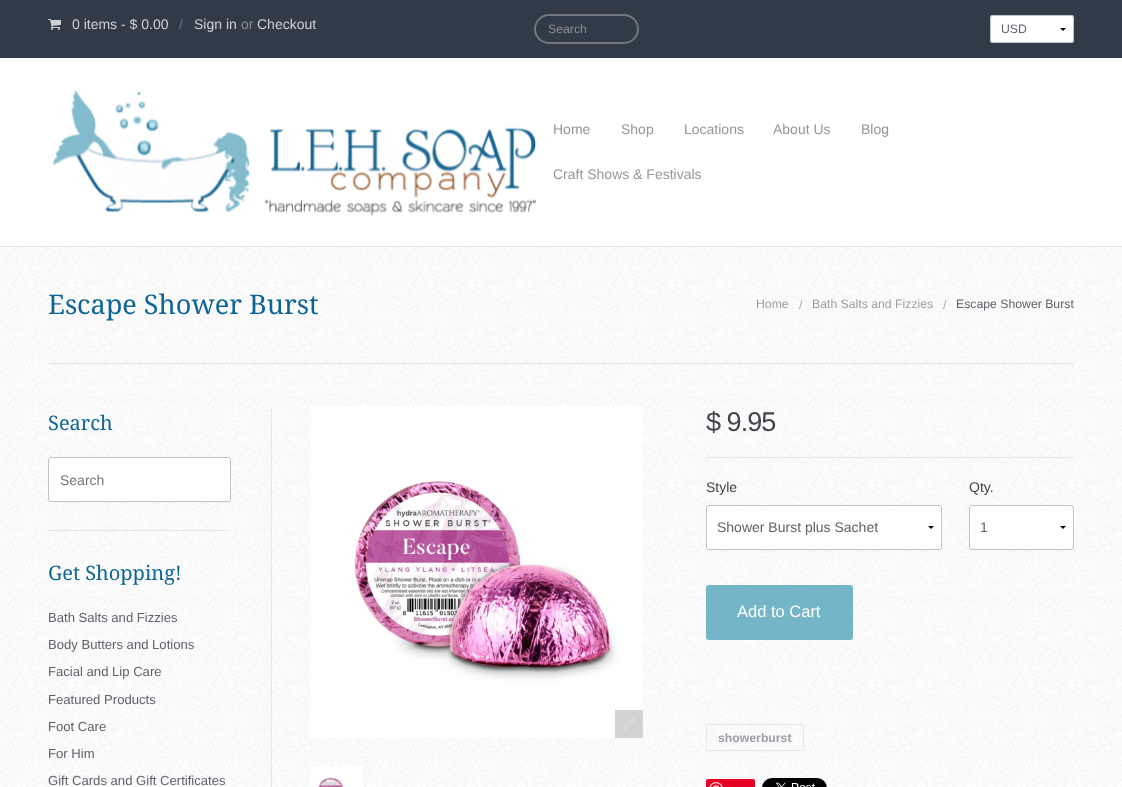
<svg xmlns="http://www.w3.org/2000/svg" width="1122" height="787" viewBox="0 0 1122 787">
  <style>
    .t1 { font: 14px Liberation Sans; fill: #cdd1d6; }
    .t2 { font: 14px Liberation Sans; fill: #6f7680; }
    .t3 { font: 14px Liberation Sans; fill: #8a9098; }
    .t4 { font: 12.25px Liberation Sans; fill: #8a9098; }
    .t5 { font: 12.25px Liberation Sans; fill: #60626b; }
    .t6 { font: 14px Liberation Sans; fill: #93979d; }
    .t7 { font: 27.1px Droid Serif; fill: #0e6493; }
    .t8 { font: 12.25px Liberation Sans; fill: #9c9ea6; }
    .t9 { font: 12.25px Liberation Sans; fill: #aaa; }
    .t10 { font: 20px Droid Serif; fill: #0e6493; }
    .t11 { font: 14px Liberation Sans; fill: #757575; }
    .t12 { font: 13.1px Liberation Sans; fill: #60626b; }
    .t13 { font: 27.1px Liberation Sans; letter-spacing: -1px; fill: #43454d; }
    .t14 { font: 14px Liberation Sans; fill: #43454d; }
    .t15 { font: 14px Liberation Sans; fill: #60626b; }
    .t16 { font: 16.5px Liberation Sans; fill: #fff; }
    .t17 { font: bold 12.25px Liberation Sans; fill: #9c9ea6; }
  </style>
  <rect width="100%" height="100%" fill="#313a47"/>
  <image x="48" y="19" width="13" height="11" href="images/1.png"/>
  <text x="72" y="29" class="t1">0 items - $ 0.00</text>
  <text x="179" y="29" class="t2">/</text>
  <text x="194" y="29" class="t1">Sign in</text>
  <text x="241" y="29" class="t3">or</text>
  <text x="257" y="29" class="t1">Checkout</text>
  <rect x="535" y="15" width="103" height="28" rx="14" fill="none" stroke="#707780" stroke-width="2"/>
  <text x="548" y="33" class="t4">Search</text>
  <rect x="990" y="15" width="84" height="28" rx="3" fill="#fff"/>
  <path d="M1066 28L1063 31L1060 28Z" fill="#000"/>
  <rect x="990.5" y="15.5" width="83" height="27" rx="2.5" fill="none" stroke="#bcc3ca"/>
  <text x="1001" y="33" class="t5">USD</text>
  <rect x="0" y="58" width="1122" height="188" fill="#fff"/>
  <rect x="0" y="246" width="1122" height="1" fill="#e4e5e6"/>
  <image x="52" y="90" width="485" height="126" href="images/2.png"/>
  <text x="553" y="134" class="t6">Home</text>
  <text x="621" y="134" class="t6">Shop</text>
  <text x="684" y="134" class="t6">Locations</text>
  <text x="773" y="134" class="t6">About Us</text>
  <text x="861" y="134" class="t6">Blog</text>
  <text x="553" y="179" class="t6">Craft Shows &amp; Festivals</text>
  <image x="0" y="247" width="1122" height="540" href="images/3.png"/>
  <rect x="48" y="363" width="1026" height="1" fill="#e5e6e7"/>
  <text x="48" y="314" class="t7">Escape Shower Burst</text>
  <text x="756" y="308" class="t8">Home</text>
  <text x="799" y="309" class="t9">/</text>
  <text x="812" y="308" class="t8">Bath Salts and Fizzies</text>
  <text x="943" y="309" class="t9">/</text>
  <text x="956" y="308" class="t5">Escape Shower Burst</text>
  <rect x="271" y="409" width="1" height="378" fill="#e5e6e7"/>
  <rect x="48" y="530" width="183" height="1" fill="#e5e6e7"/>
  <text x="48" y="430" class="t10">Search</text>
  <rect x="48.5" y="457.5" width="182" height="44" rx="2.5" fill="#fff" stroke="#bcc3ca"/>
  <text x="60" y="485" class="t11">Search</text>
  <text x="48" y="580" class="t10">Get Shopping!</text>
  <text x="48" y="622" class="t12">Bath Salts and Fizzies</text>
  <text x="48" y="649" class="t12">Body Butters and Lotions</text>
  <text x="48" y="676" class="t12">Facial and Lip Care</text>
  <text x="48" y="704" class="t12">Featured Products</text>
  <text x="48" y="731" class="t12">Foot Care</text>
  <text x="48" y="758" class="t12">For Him</text>
  <text x="48" y="785" class="t12">Gift Cards and Gift Certificates</text>
  <image x="311" y="406" width="332" height="332" href="images/4.png"/>
  <rect x="615" y="710" width="28" height="28" fill="#d3d3d3"/>
  <image x="623" y="718" width="12" height="12" href="images/5.png"/>
  <image x="311" y="766" width="52" height="21" href="images/6.png"/>
  <rect x="706" y="457" width="368" height="1" fill="#e5e6e7"/>
  <text x="706" y="431" class="t13">$ 9.95</text>
  <text x="706" y="492" class="t14">Style</text>
  <rect x="706" y="505" width="236" height="45" rx="3" fill="#fff"/>
  <path d="M934 526L931 529L928 526Z" fill="#000"/>
  <rect x="706.5" y="505.5" width="235" height="44" rx="2.5" fill="none" stroke="#bcc3ca"/>
  <text x="717" y="532" class="t15">Shower Burst plus Sachet</text>
  <text x="969" y="492" class="t14">Qty.</text>
  <rect x="969" y="505" width="105" height="45" rx="3" fill="#fff"/>
  <path d="M1066 526L1063 529L1060 526Z" fill="#000"/>
  <rect x="969.5" y="505.5" width="104" height="44" rx="2.5" fill="none" stroke="#bcc3ca"/>
  <text x="980" y="532" class="t15">1</text>
  <rect x="706" y="585" width="147" height="55" rx="3" fill="#74b6c7"/>
  <text x="737" y="617" class="t16">Add to Cart</text>
  <rect x="706.5" y="724.5" width="97" height="26" rx="2.5" fill="none" stroke="#e5e6e7"/>
  <text x="718" y="742" class="t17">showerburst</text>
  <rect x="706" y="779" width="49" height="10" rx="2" fill="#e60023"/>
  <image x="709" y="782" width="14" height="5" href="images/7.png"/>
  <image x="762" y="778" width="65" height="9" href="images/8.png"/>
</svg>
